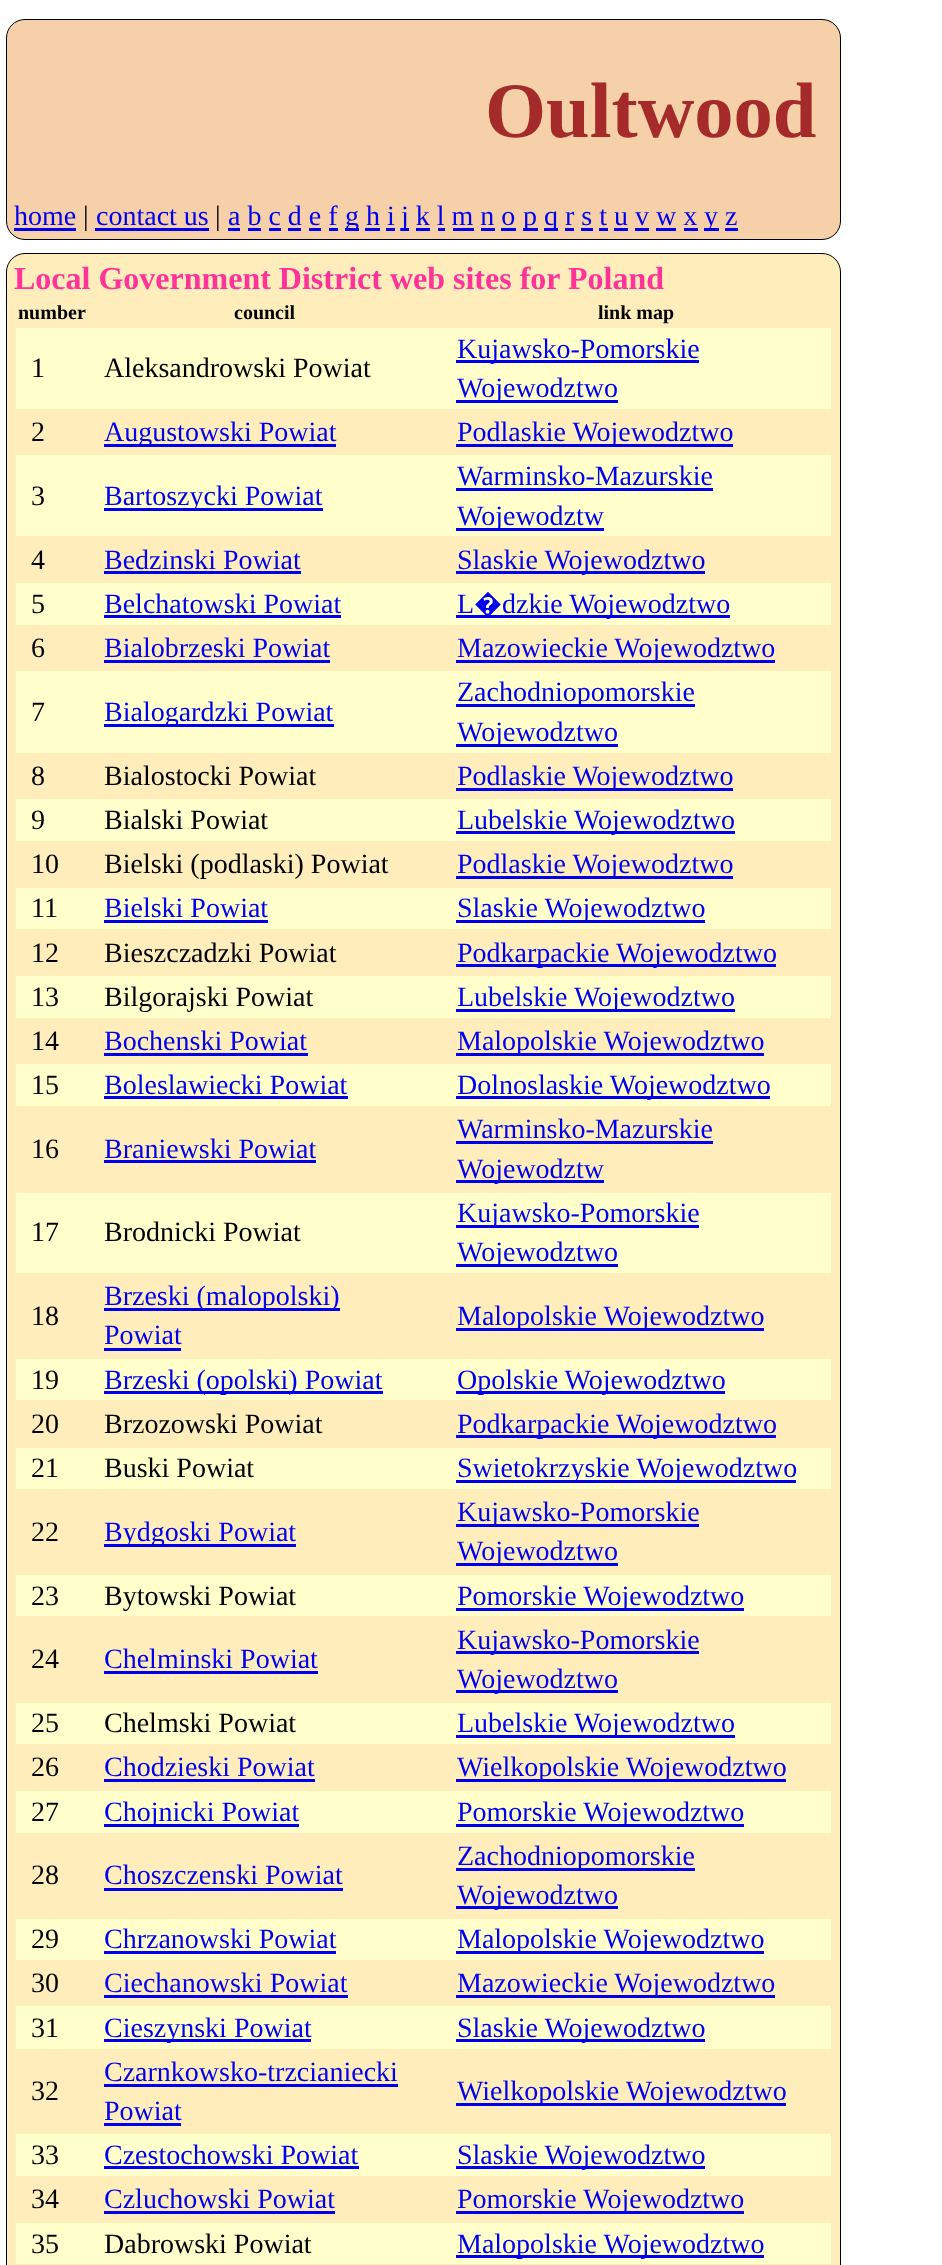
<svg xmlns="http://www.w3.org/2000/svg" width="942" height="2265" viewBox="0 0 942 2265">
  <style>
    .t1 { font: bold 78.5px Liberation Serif; fill: #a52a2a; }
    .t2 { font: 28px Liberation Serif; fill: #00e; }
    .t3 { font: 28px Liberation Serif; fill: #000; }
    .t4 { font: bold 32px Liberation Serif; fill: #f39; }
    .t5 { font: bold 20px Liberation Serif; fill: #000; }
    .t6 { font: 28px Noto Sans; fill: #00e; }
  </style>
  <rect width="100%" height="100%" fill="#fff"/>
  <rect x="6.5" y="19.5" width="834" height="220" rx="18.5" fill="#f5d0a9" stroke="#000"/>
  <text x="485" y="137" class="t1">Oultwood</text>
  <text x="14" y="225" class="t2">home</text>
  <rect x="14" y="228" width="62" height="3" fill="#00e"/>
  <text x="83" y="225" class="t3">|</text>
  <text x="96" y="225" class="t2">contact us</text>
  <rect x="95" y="228" width="114" height="3" fill="#00e"/>
  <text x="215" y="225" class="t3">|</text>
  <text x="228" y="225" class="t2">a b c d e f</text>
  <rect x="228" y="228" width="12" height="3" fill="#00e"/>
  <rect x="345" y="228" width="14" height="3" fill="#00e"/>
  <text x="345" y="225" class="t2">g h i</text>
  <rect x="401" y="228" width="8" height="3" fill="#00e"/>
  <text x="401" y="225" class="t2">j k l m n o</text>
  <rect x="523" y="228" width="15" height="3" fill="#00e"/>
  <text x="523" y="225" class="t2">p</text>
  <rect x="544" y="228" width="14" height="3" fill="#00e"/>
  <text x="544" y="225" class="t2">q r s t u v w x</text>
  <rect x="704" y="228" width="15" height="3" fill="#00e"/>
  <text x="704" y="225" class="t2">y z</text>
  <rect x="248" y="228" width="13" height="3" fill="#00e"/>
  <rect x="269" y="228" width="12" height="3" fill="#00e"/>
  <rect x="288" y="228" width="13" height="3" fill="#00e"/>
  <rect x="309" y="228" width="12" height="3" fill="#00e"/>
  <rect x="329" y="228" width="9" height="3" fill="#00e"/>
  <rect x="365" y="228" width="15" height="3" fill="#00e"/>
  <rect x="386" y="228" width="9" height="3" fill="#00e"/>
  <rect x="416" y="228" width="14" height="3" fill="#00e"/>
  <rect x="438" y="228" width="7" height="3" fill="#00e"/>
  <rect x="453" y="228" width="21" height="3" fill="#00e"/>
  <rect x="481" y="228" width="14" height="3" fill="#00e"/>
  <rect x="501" y="228" width="15" height="3" fill="#00e"/>
  <rect x="565" y="228" width="9" height="3" fill="#00e"/>
  <rect x="581" y="228" width="12" height="3" fill="#00e"/>
  <rect x="599" y="228" width="9" height="3" fill="#00e"/>
  <rect x="614" y="228" width="14" height="3" fill="#00e"/>
  <rect x="635" y="228" width="14" height="3" fill="#00e"/>
  <rect x="656" y="228" width="20" height="3" fill="#00e"/>
  <rect x="684" y="228" width="14" height="3" fill="#00e"/>
  <rect x="725" y="228" width="13" height="3" fill="#00e"/>
  <rect x="6.5" y="253.5" width="834" height="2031" rx="18.5" fill="#feb" stroke="#000"/>
  <text x="14" y="289" class="t4">Local Government District web sites for Poland</text>
  <text x="18" y="319" class="t5">number</text>
  <text x="234" y="319" class="t5">council</text>
  <text x="598" y="319" class="t5">link map</text>
  <rect x="16" y="328" width="815" height="81" fill="#ffc"/>
  <text x="31" y="377" class="t3">1</text>
  <text x="104" y="377" class="t3">Aleksandrowski Powiat</text>
  <rect x="456" y="360" width="243" height="3" fill="#00e"/>
  <text x="457" y="358" class="t2">Kujawsko-Pomorskie</text>
  <rect x="456" y="400" width="162" height="3" fill="#00e"/>
  <text x="457" y="397" class="t2">Wojewodztwo</text>
  <text x="31" y="441" class="t3">2</text>
  <rect x="104" y="444" width="232" height="3" fill="#00e"/>
  <text x="104" y="441" class="t2">Augustowski Powiat</text>
  <rect x="456" y="444" width="277" height="3" fill="#00e"/>
  <text x="457" y="441" class="t2">Podlaskie Wojewodztwo</text>
  <rect x="16" y="455" width="815" height="81" fill="#ffc"/>
  <text x="31" y="505" class="t3">3</text>
  <rect x="104" y="508" width="219" height="3" fill="#00e"/>
  <text x="104" y="505" class="t2">Bartoszycki Powiat</text>
  <text x="457" y="485" class="t2">Warminsko-Mazurskie</text>
  <rect x="456" y="488" width="257" height="3" fill="#00e"/>
  <rect x="456" y="528" width="148" height="3" fill="#00e"/>
  <text x="457" y="525" class="t2">Wojewodztw</text>
  <text x="31" y="569" class="t3">4</text>
  <text x="104" y="569" class="t2">Bedzinski Powiat</text>
  <rect x="104" y="571" width="197" height="3" fill="#00e"/>
  <rect x="456" y="571" width="249" height="3" fill="#00e"/>
  <text x="457" y="569" class="t2">Slaskie Wojewodztwo</text>
  <rect x="16" y="583" width="815" height="42" fill="#ffc"/>
  <text x="31" y="613" class="t3">5</text>
  <text x="104" y="613" class="t2">Belchatowski Powiat</text>
  <rect x="104" y="615" width="237" height="3" fill="#00e"/>
  <text x="457" y="613" class="t2">L</text>
  <rect x="456" y="615" width="274" height="3" fill="#00e"/>
  <text x="474" y="613" class="t6">�</text>
  <text x="502" y="613" class="t2">dzkie Wojewodztwo</text>
  <text x="31" y="657" class="t3">6</text>
  <text x="104" y="657" class="t2">Bialobrzeski Powiat</text>
  <rect x="104" y="660" width="226" height="3" fill="#00e"/>
  <rect x="456" y="660" width="319" height="3" fill="#00e"/>
  <text x="457" y="657" class="t2">Mazowieckie Wojewodztwo</text>
  <rect x="16" y="671" width="815" height="82" fill="#ffc"/>
  <text x="31" y="721" class="t3">7</text>
  <rect x="104" y="724" width="230" height="3" fill="#00e"/>
  <text x="104" y="721" class="t2">Bialogardzki Powiat</text>
  <rect x="456" y="704" width="239" height="3" fill="#00e"/>
  <text x="457" y="701" class="t2">Zachodniopomorskie</text>
  <rect x="456" y="744" width="162" height="3" fill="#00e"/>
  <text x="457" y="741" class="t2">Wojewodztwo</text>
  <text x="31" y="785" class="t3">8</text>
  <text x="104" y="785" class="t3">Bialostocki Powiat</text>
  <rect x="456" y="788" width="277" height="3" fill="#00e"/>
  <text x="457" y="785" class="t2">Podlaskie Wojewodztwo</text>
  <rect x="16" y="799" width="815" height="42" fill="#ffc"/>
  <text x="31" y="829" class="t3">9</text>
  <text x="104" y="829" class="t3">Bialski Powiat</text>
  <rect x="456" y="831" width="279" height="3" fill="#00e"/>
  <text x="457" y="829" class="t2">Lubelskie Wojewodztwo</text>
  <text x="31" y="873" class="t3">10</text>
  <text x="104" y="873" class="t3">Bielski (podlaski) Powiat</text>
  <rect x="456" y="876" width="277" height="3" fill="#00e"/>
  <text x="457" y="873" class="t2">Podlaskie Wojewodztwo</text>
  <rect x="16" y="888" width="815" height="41" fill="#ffc"/>
  <text x="31" y="917" class="t3">11</text>
  <text x="104" y="917" class="t2">Bielski Powiat</text>
  <rect x="104" y="920" width="164" height="3" fill="#00e"/>
  <rect x="456" y="920" width="249" height="3" fill="#00e"/>
  <text x="457" y="917" class="t2">Slaskie Wojewodztwo</text>
  <text x="31" y="962" class="t3">12</text>
  <text x="104" y="962" class="t3">Bieszczadzki Powiat</text>
  <rect x="456" y="964" width="320" height="3" fill="#00e"/>
  <text x="457" y="962" class="t2">Podkarpackie Wojewodztwo</text>
  <rect x="16" y="976" width="815" height="42" fill="#ffc"/>
  <text x="31" y="1006" class="t3">13</text>
  <text x="104" y="1006" class="t3">Bilgorajski Powiat</text>
  <rect x="456" y="1009" width="279" height="3" fill="#00e"/>
  <text x="457" y="1006" class="t2">Lubelskie Wojewodztwo</text>
  <text x="31" y="1050" class="t3">14</text>
  <text x="104" y="1050" class="t2">Bochenski Powiat</text>
  <rect x="104" y="1053" width="204" height="3" fill="#00e"/>
  <rect x="456" y="1053" width="308" height="3" fill="#00e"/>
  <text x="457" y="1050" class="t2">Malopolskie Wojewodztwo</text>
  <rect x="16" y="1064" width="815" height="42" fill="#ffc"/>
  <text x="31" y="1094" class="t3">15</text>
  <text x="104" y="1094" class="t2">Boleslawiecki Powiat</text>
  <rect x="104" y="1096" width="244" height="3" fill="#00e"/>
  <rect x="456" y="1096" width="314" height="3" fill="#00e"/>
  <text x="457" y="1094" class="t2">Dolnoslaskie Wojewodztwo</text>
  <text x="31" y="1158" class="t3">16</text>
  <text x="104" y="1158" class="t2">Braniewski Powiat</text>
  <rect x="104" y="1160" width="212" height="3" fill="#00e"/>
  <text x="457" y="1138" class="t2">Warminsko-Mazurskie</text>
  <rect x="456" y="1141" width="257" height="3" fill="#00e"/>
  <rect x="456" y="1180" width="148" height="3" fill="#00e"/>
  <text x="457" y="1178" class="t2">Wojewodztw</text>
  <rect x="16" y="1193" width="815" height="80" fill="#ffc"/>
  <text x="31" y="1241" class="t3">17</text>
  <text x="104" y="1241" class="t3">Brodnicki Powiat</text>
  <rect x="456" y="1225" width="243" height="3" fill="#00e"/>
  <text x="457" y="1222" class="t2">Kujawsko-Pomorskie</text>
  <rect x="456" y="1264" width="162" height="3" fill="#00e"/>
  <text x="457" y="1261" class="t2">Wojewodztwo</text>
  <text x="31" y="1325" class="t3">18</text>
  <rect x="104" y="1308" width="236" height="3" fill="#00e"/>
  <text x="104" y="1305" class="t2">Brzeski (malopolski)</text>
  <text x="104" y="1344" class="t2">Powiat</text>
  <rect x="104" y="1348" width="77" height="3" fill="#00e"/>
  <rect x="456" y="1328" width="308" height="3" fill="#00e"/>
  <text x="457" y="1325" class="t2">Malopolskie Wojewodztwo</text>
  <rect x="16" y="1359" width="815" height="41" fill="#ffc"/>
  <text x="31" y="1389" class="t3">19</text>
  <rect x="104" y="1391" width="279" height="3" fill="#00e"/>
  <text x="104" y="1389" class="t2">Brzeski (opolski) Powiat</text>
  <rect x="456" y="1391" width="269" height="3" fill="#00e"/>
  <text x="457" y="1389" class="t2">Opolskie Wojewodztwo</text>
  <text x="31" y="1433" class="t3">20</text>
  <text x="104" y="1433" class="t3">Brzozowski Powiat</text>
  <rect x="456" y="1435" width="320" height="3" fill="#00e"/>
  <text x="457" y="1433" class="t2">Podkarpackie Wojewodztwo</text>
  <rect x="16" y="1448" width="815" height="41" fill="#ffc"/>
  <text x="31" y="1477" class="t3">21</text>
  <text x="104" y="1477" class="t3">Buski Powiat</text>
  <rect x="456" y="1480" width="340" height="3" fill="#00e"/>
  <text x="457" y="1477" class="t2">Swietokrzyskie Wojewodztwo</text>
  <text x="31" y="1541" class="t3">22</text>
  <rect x="104" y="1544" width="192" height="3" fill="#00e"/>
  <text x="104" y="1541" class="t2">Bydgoski Powiat</text>
  <rect x="456" y="1524" width="243" height="3" fill="#00e"/>
  <text x="457" y="1521" class="t2">Kujawsko-Pomorskie</text>
  <rect x="456" y="1563" width="162" height="3" fill="#00e"/>
  <text x="457" y="1560" class="t2">Wojewodztwo</text>
  <rect x="16" y="1575" width="815" height="41" fill="#ffc"/>
  <text x="31" y="1605" class="t3">23</text>
  <text x="104" y="1605" class="t3">Bytowski Powiat</text>
  <rect x="456" y="1608" width="288" height="3" fill="#00e"/>
  <text x="457" y="1605" class="t2">Pomorskie Wojewodztwo</text>
  <text x="31" y="1668" class="t3">24</text>
  <text x="104" y="1668" class="t2">Chelminski Powiat</text>
  <rect x="104" y="1671" width="214" height="3" fill="#00e"/>
  <rect x="456" y="1651" width="243" height="3" fill="#00e"/>
  <text x="457" y="1649" class="t2">Kujawsko-Pomorskie</text>
  <rect x="456" y="1690" width="162" height="3" fill="#00e"/>
  <text x="457" y="1688" class="t2">Wojewodztwo</text>
  <rect x="16" y="1703" width="815" height="41" fill="#ffc"/>
  <text x="31" y="1732" class="t3">25</text>
  <text x="104" y="1732" class="t3">Chelmski Powiat</text>
  <rect x="456" y="1735" width="279" height="3" fill="#00e"/>
  <text x="457" y="1732" class="t2">Lubelskie Wojewodztwo</text>
  <text x="31" y="1776" class="t3">26</text>
  <text x="104" y="1776" class="t2">Chodzieski Powiat</text>
  <rect x="104" y="1779" width="211" height="3" fill="#00e"/>
  <rect x="456" y="1779" width="330" height="3" fill="#00e"/>
  <text x="457" y="1776" class="t2">Wielkopolskie Wojewodztwo</text>
  <rect x="16" y="1791" width="815" height="42" fill="#ffc"/>
  <text x="31" y="1821" class="t3">27</text>
  <rect x="104" y="1824" width="195" height="3" fill="#00e"/>
  <text x="104" y="1821" class="t2">Chojnicki Powiat</text>
  <rect x="456" y="1824" width="288" height="3" fill="#00e"/>
  <text x="457" y="1821" class="t2">Pomorskie Wojewodztwo</text>
  <text x="31" y="1884" class="t3">28</text>
  <text x="104" y="1884" class="t2">Choszczenski Powiat</text>
  <rect x="104" y="1888" width="239" height="3" fill="#00e"/>
  <rect x="456" y="1868" width="239" height="3" fill="#00e"/>
  <text x="457" y="1865" class="t2">Zachodniopomorskie</text>
  <rect x="456" y="1906" width="162" height="3" fill="#00e"/>
  <text x="457" y="1904" class="t2">Wojewodztwo</text>
  <rect x="16" y="1919" width="815" height="41" fill="#ffc"/>
  <text x="31" y="1948" class="t3">29</text>
  <text x="104" y="1948" class="t2">Chrzanowski Powiat</text>
  <rect x="104" y="1951" width="232" height="3" fill="#00e"/>
  <rect x="456" y="1951" width="308" height="3" fill="#00e"/>
  <text x="457" y="1948" class="t2">Malopolskie Wojewodztwo</text>
  <text x="31" y="1992" class="t3">30</text>
  <text x="104" y="1992" class="t2">Ciechanowski Powiat</text>
  <rect x="104" y="1995" width="244" height="3" fill="#00e"/>
  <rect x="456" y="1995" width="319" height="3" fill="#00e"/>
  <text x="457" y="1992" class="t2">Mazowieckie Wojewodztwo</text>
  <rect x="16" y="2006" width="815" height="43" fill="#ffc"/>
  <text x="31" y="2037" class="t3">31</text>
  <rect x="104" y="2039" width="207" height="3" fill="#00e"/>
  <text x="104" y="2037" class="t2">Cieszynski Powiat</text>
  <rect x="456" y="2039" width="249" height="3" fill="#00e"/>
  <text x="457" y="2037" class="t2">Slaskie Wojewodztwo</text>
  <text x="31" y="2100" class="t3">32</text>
  <text x="104" y="2081" class="t2">Czarnkowsko-trzcianiecki</text>
  <rect x="104" y="2084" width="294" height="3" fill="#00e"/>
  <text x="104" y="2120" class="t2">Powiat</text>
  <rect x="104" y="2123" width="77" height="3" fill="#00e"/>
  <rect x="456" y="2103" width="330" height="3" fill="#00e"/>
  <text x="457" y="2100" class="t2">Wielkopolskie Wojewodztwo</text>
  <rect x="16" y="2134" width="815" height="42" fill="#ffc"/>
  <text x="31" y="2164" class="t3">33</text>
  <text x="104" y="2164" class="t2">Czestochowski Powiat</text>
  <rect x="104" y="2166" width="255" height="3" fill="#00e"/>
  <rect x="456" y="2166" width="249" height="3" fill="#00e"/>
  <text x="457" y="2164" class="t2">Slaskie Wojewodztwo</text>
  <text x="31" y="2208" class="t3">34</text>
  <text x="104" y="2208" class="t2">Czluchowski Powiat</text>
  <rect x="104" y="2211" width="231" height="3" fill="#00e"/>
  <rect x="456" y="2211" width="288" height="3" fill="#00e"/>
  <text x="457" y="2208" class="t2">Pomorskie Wojewodztwo</text>
  <rect x="16" y="2223" width="815" height="41" fill="#ffc"/>
  <text x="31" y="2253" class="t3">35</text>
  <text x="104" y="2253" class="t3">Dabrowski Powiat</text>
  <rect x="456" y="2255" width="308" height="3" fill="#00e"/>
  <text x="457" y="2253" class="t2">Malopolskie Wojewodztwo</text>
</svg>
